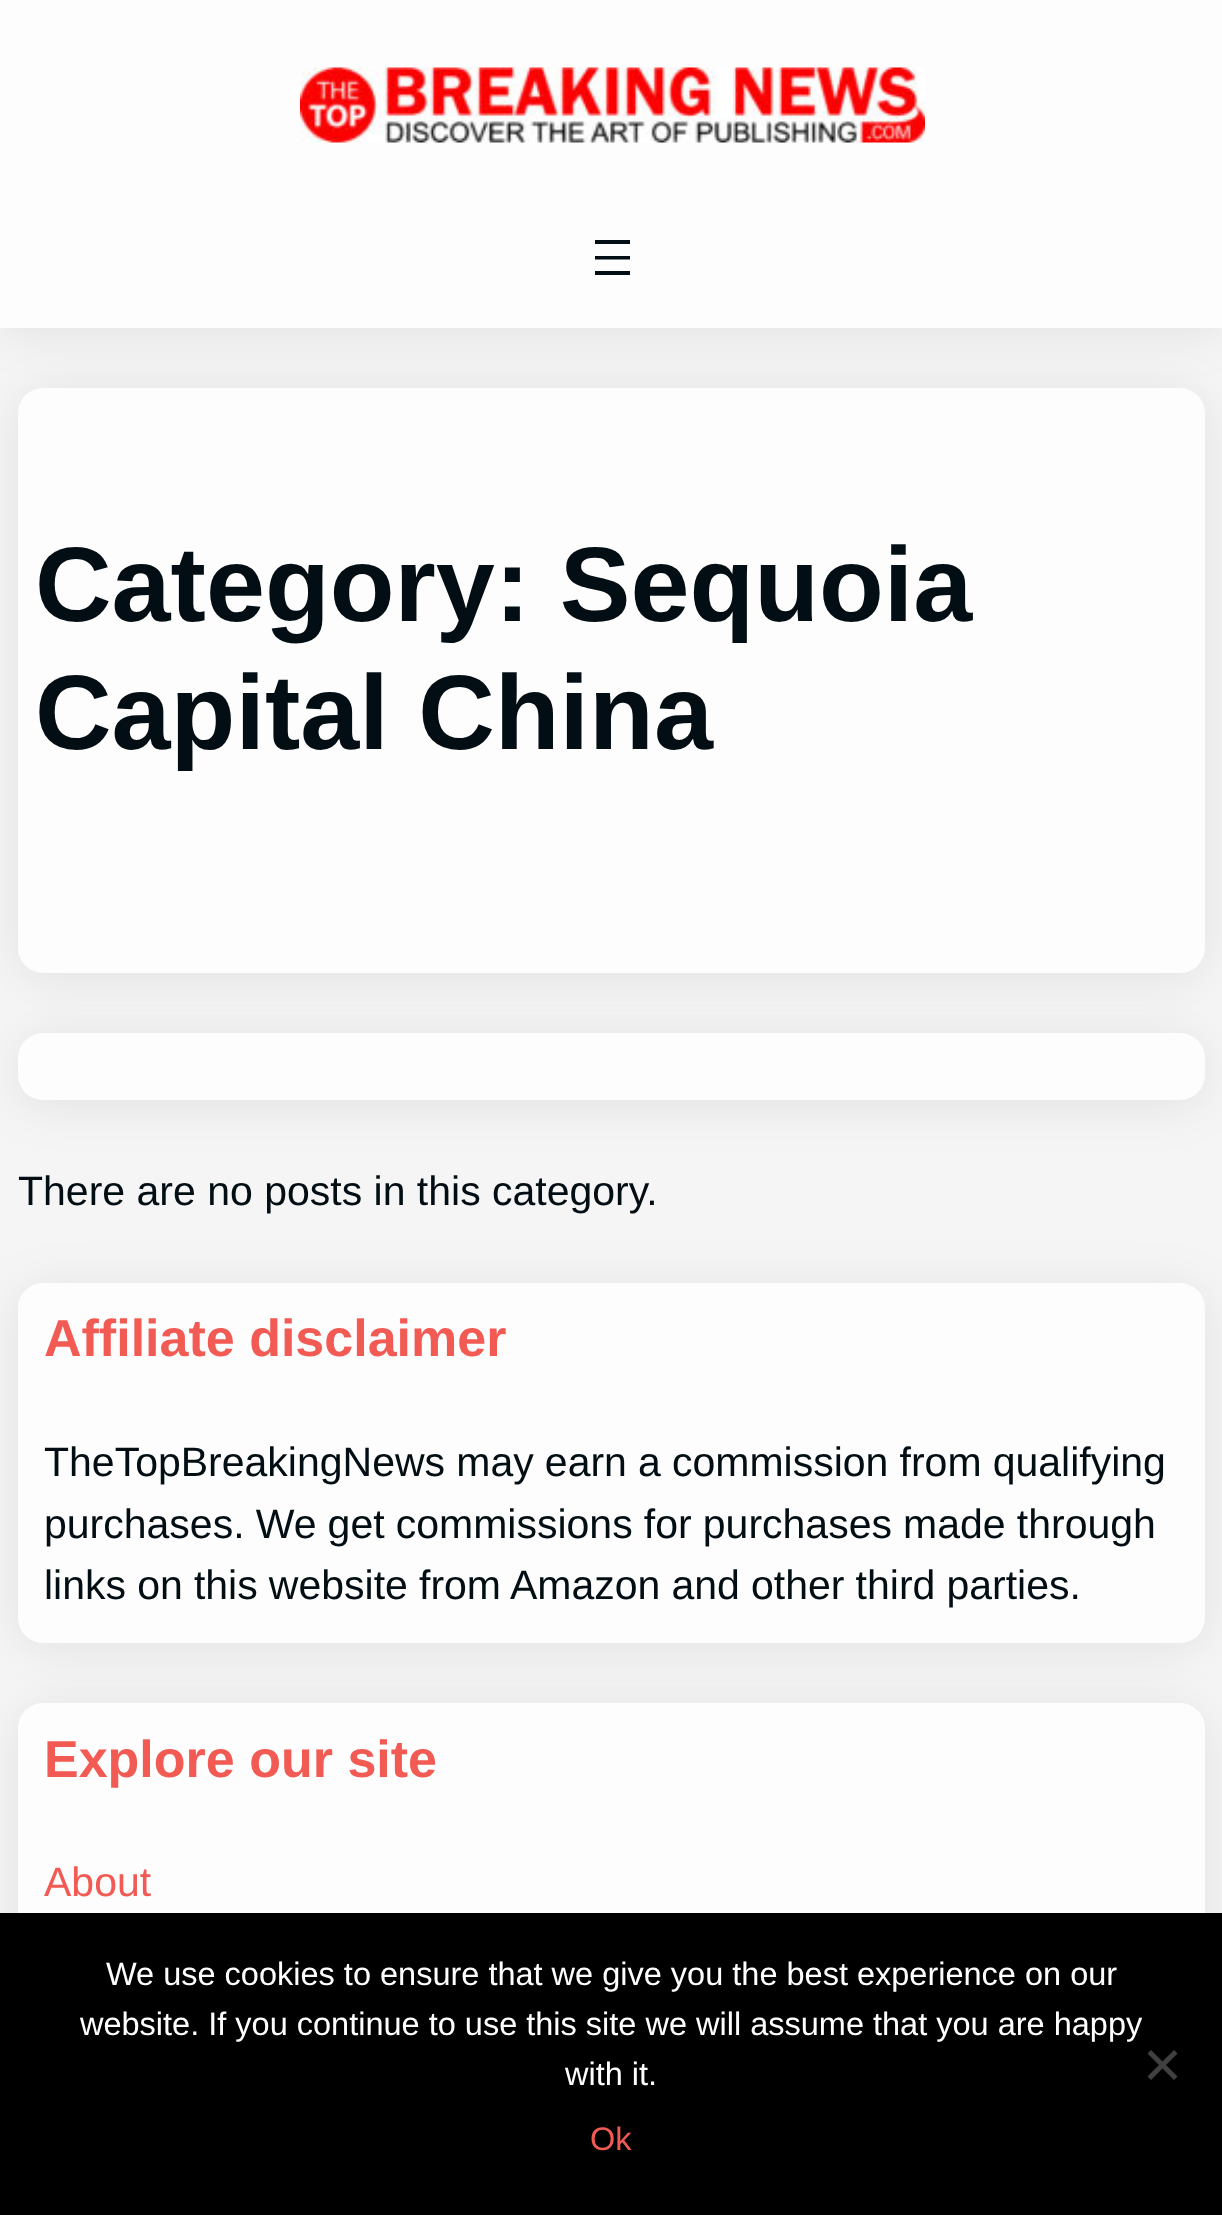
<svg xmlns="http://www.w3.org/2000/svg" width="1222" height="2215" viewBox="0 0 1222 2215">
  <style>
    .t1 { font: bold 106.1px Liberation Sans; fill: #020e13; }
    .t2 { font: 41px Liberation Sans; fill: #020e13; }
    .t3 { font: bold 52px Liberation Sans; fill: #f25a54; }
    .t4 { font: 41px Liberation Sans; fill: #f25a54; }
    .t5 { font: 32.5px Liberation Sans; fill: #fff; }
    .t6 { font: 32.5px Liberation Sans; fill: #f25a54; }
  </style>
  <rect width="100%" height="100%" fill="#f5f5f5"/>
  <rect x="0" y="5" width="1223" height="328" fill="#00000014" filter="blur(25px)"/>
  <rect x="0" y="0" width="1222" height="328" fill="#fdfdfd"/>
  <image x="300" y="67" width="625" height="76" href="images/1.png"/>
  <path d="M595 240V244H630V240ZM595 259.5H630V256H595ZM595 275H630V271H595Z" fill="#020e13"/>
  <rect x="18" y="393" width="1187" height="585" rx="25" fill="#00000014" filter="blur(25px)"/>
  <rect x="18" y="388" width="1187" height="585" rx="25" fill="#fdfdfd"/>
  <text x="35" y="621" class="t1">Category: Sequoia</text>
  <text x="35" y="749" class="t1">Capital China</text>
  <rect x="18" y="1038" width="1187" height="67" rx="25" fill="#00000014" filter="blur(25px)"/>
  <rect x="18" y="1033" width="1187" height="67" rx="25" fill="#fdfdfd"/>
  <text x="18" y="1205" class="t2">There are no posts in this category.</text>
  <rect x="18" y="1288" width="1187" height="360" rx="25" fill="#00000014" filter="blur(25px)"/>
  <rect x="18" y="1283" width="1187" height="360" rx="25" fill="#fdfdfd"/>
  <text x="44" y="1356" class="t3">Affiliate disclaimer</text>
  <text x="44" y="1476" word-spacing="-0.25" class="t2">TheTopBreakingNews may earn a commission from qualifying</text>
  <text x="44" y="1538" word-spacing="-0.25" class="t2">purchases. We get commissions for purchases made through</text>
  <text x="44" y="1599" word-spacing="-0.25" class="t2">links on this website from Amazon and other third parties.</text>
  <rect x="18" y="1708" width="1187" height="420" rx="25" fill="#00000014" filter="blur(25px)"/>
  <rect x="18" y="1703" width="1187" height="420" rx="25" fill="#fdfdfd"/>
  <text x="44" y="1777" class="t3">Explore our site</text>
  <text x="44" y="1896" class="t4">About</text>
  <rect x="0" y="1913" width="1222" height="302" fill="#000"/>
  <text x="106" y="1985" class="t5">We use cookies to ensure that we give you the best experience on our</text>
  <text x="80" y="2035" class="t5">website. If you continue to use this site we will assume that you are happy</text>
  <text x="565" y="2085" class="t5">with it.</text>
  <path d="M1174 2050L1177.5 2053.5L1151 2080L1147.5 2076.5Z" fill="#404040"/>
  <path d="M1147.5 2053.5L1151 2050L1177.5 2076.5L1174 2080Z" fill="#404040"/>
  <text x="590" y="2150" class="t6">Ok</text>
</svg>
